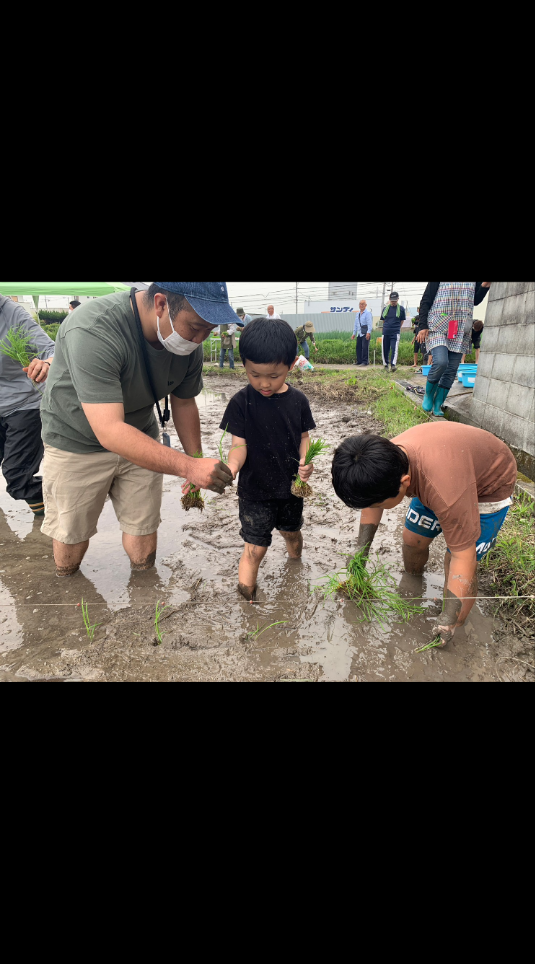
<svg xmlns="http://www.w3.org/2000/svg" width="535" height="964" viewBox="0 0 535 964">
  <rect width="100%" height="100%" fill="#000"/>
  <image x="0" y="281" width="535" height="401" href="images/1.png"/>
</svg>
